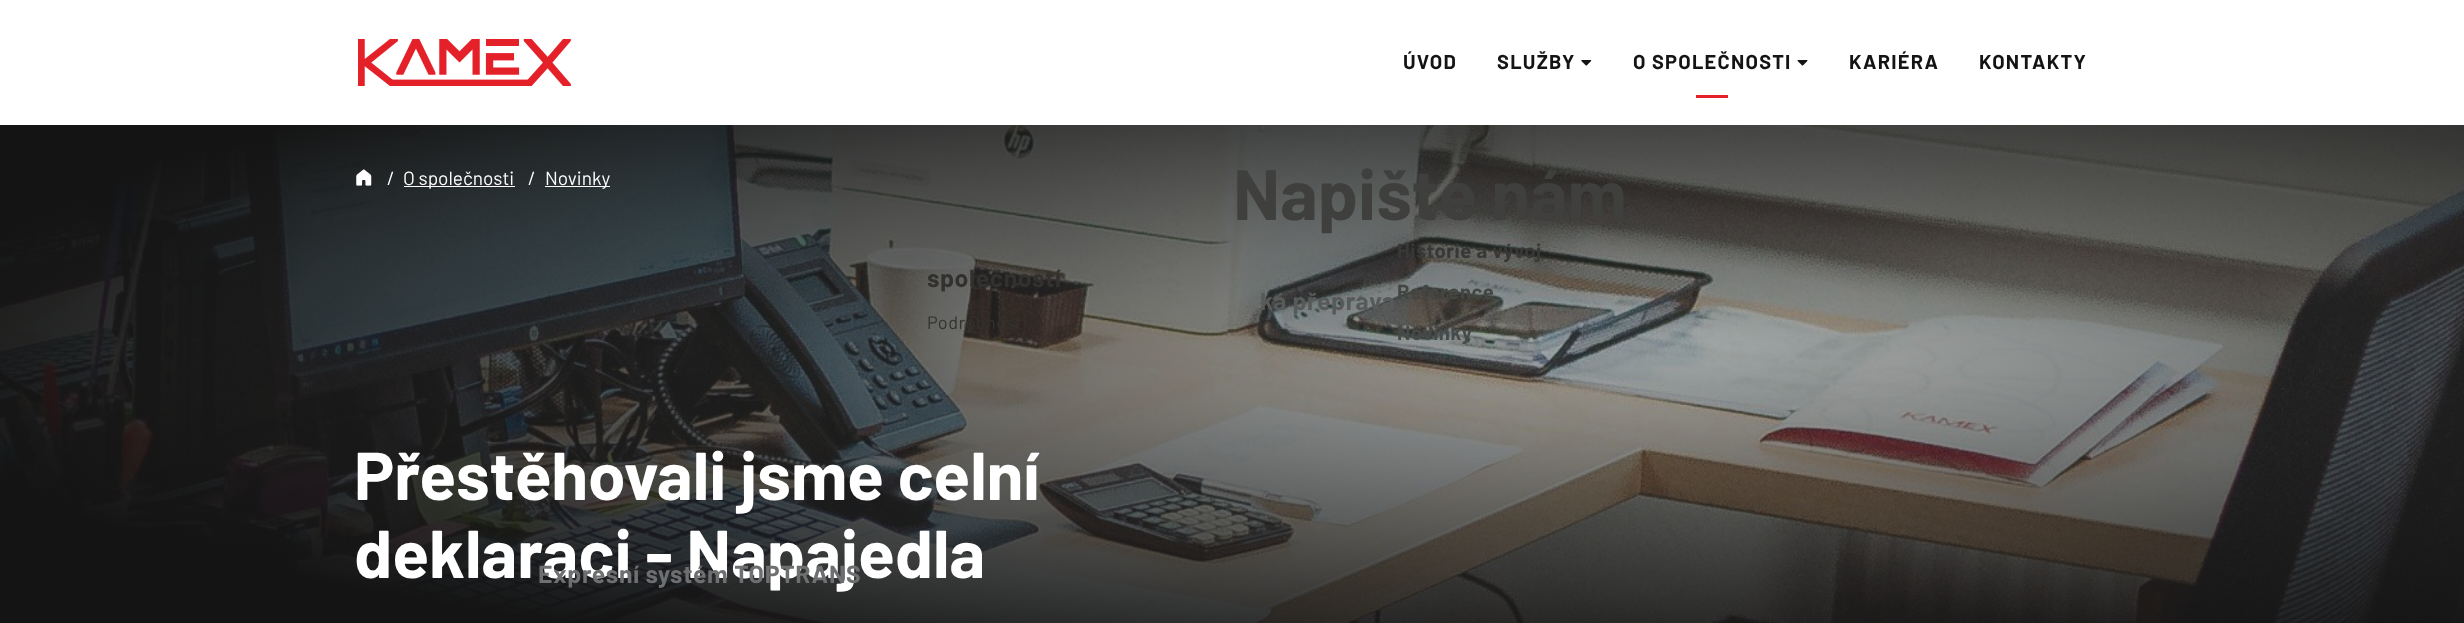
<svg xmlns="http://www.w3.org/2000/svg" width="2464" height="623" viewBox="0 0 2464 623">
  <style>
    .t1 { font: bold 20px Barlow; letter-spacing: 1.25px; fill: #141414; }
    .t2 { font: bold 24.75px Barlow; letter-spacing: 0.6px; fill: #575a58; }
    .t3 { font: bold 67.5px Barlow; fill: #fff; }
    .t4 { font: bold 24.75px Barlow; letter-spacing: 0.7px; fill: #6e6f70; }
    .t5 { font: bold 24.75px Barlow; letter-spacing: 0.6px; fill: #32312f; }
    .t6 { font: 18px Barlow; letter-spacing: 0.5px; fill: #32312f; }
    .t7 { font: bold 20.25px Barlow; letter-spacing: 0.5px; fill: #383836; }
    .t8 { font: bold 20.25px Barlow; letter-spacing: 0.5px; fill: #444643; }
    .t9 { font: bold 20.25px Barlow; letter-spacing: 0.5px; fill: #464b49; }
    .t10 { font: 19px Barlow; fill: #fff; }
    .t11 { font: bold 71px Barlow; fill: #3f3f3e; }
    .t12 { font: 17px Barlow; letter-spacing: 1px; fill: #505453; }
  </style>
  <defs>
    <radialGradient id="g1" gradientUnits="userSpaceOnUse" cx="0" cy="0" r="1" gradientTransform="matrix(1849 0 0 348 1695 349)"><stop offset="0" stop-color="#141414" stop-opacity="0"/><stop offset="1" stop-color="#141414"/></radialGradient>
  </defs>
  <rect width="100%" height="100%" fill="#fff"/>
  <image x="358" y="39" width="213" height="47" href="images/1.png"/>
  <text x="1497" y="69" class="t1">SLUŽBY</text>
  <image x="1581" y="60" width="11" height="6" href="images/2.png"/>
  <image x="0" y="125" width="2464" height="498" href="images/4.png"/>
  <rect x="0" y="125" width="2464" height="498" fill="url(#g1)"/>
  <text x="1260" y="310" class="t2">ká přeprava</text>
  <text x="354" y="578" class="t3">deklaraci - Napajedla</text>
  <text x="538" y="583" class="t4">Expresní systém TOPTRANS</text>
  <text x="1633" y="69" class="t1">O SPOLEČNOSTI</text>
  <rect x="1696" y="95" width="32" height="3" fill="#e42129"/>
  <image x="1797" y="60" width="11" height="6" href="images/3.png"/>
  <text x="927" y="287" class="t5">společností</text>
  <text x="927" y="329" class="t6">Podrobnosti</text>
  <text x="1397" y="258" class="t7">Historie a vývoj</text>
  <text x="1397" y="299" class="t8">Reference</text>
  <text x="1397" y="340" class="t9">Novinky</text>
  <text x="1403" y="69" class="t1">ÚVOD</text>
  <text x="1849" y="69" class="t1">KARIÉRA</text>
  <text x="1979" y="69" class="t1">KONTAKTY</text>
  <image x="356" y="169" width="16" height="17" href="images/5.png"/>
  <text x="387" y="185" class="t10">/</text>
  <rect x="404" y="186" width="111" height="1" fill="#fff"/>
  <text x="403" y="185" class="t10">O společnosti</text>
  <text x="528" y="185" class="t10">/</text>
  <rect x="545" y="186" width="65" height="1" fill="#fff"/>
  <text x="545" y="185" class="t10">Novinky</text>
  <text x="354" y="500" class="t3">Přestěhovali jsme celní</text>
  <text x="1233" y="220" class="t11">Napište nám</text>
  <text x="1409" y="307" class="t12">I</text>
</svg>
